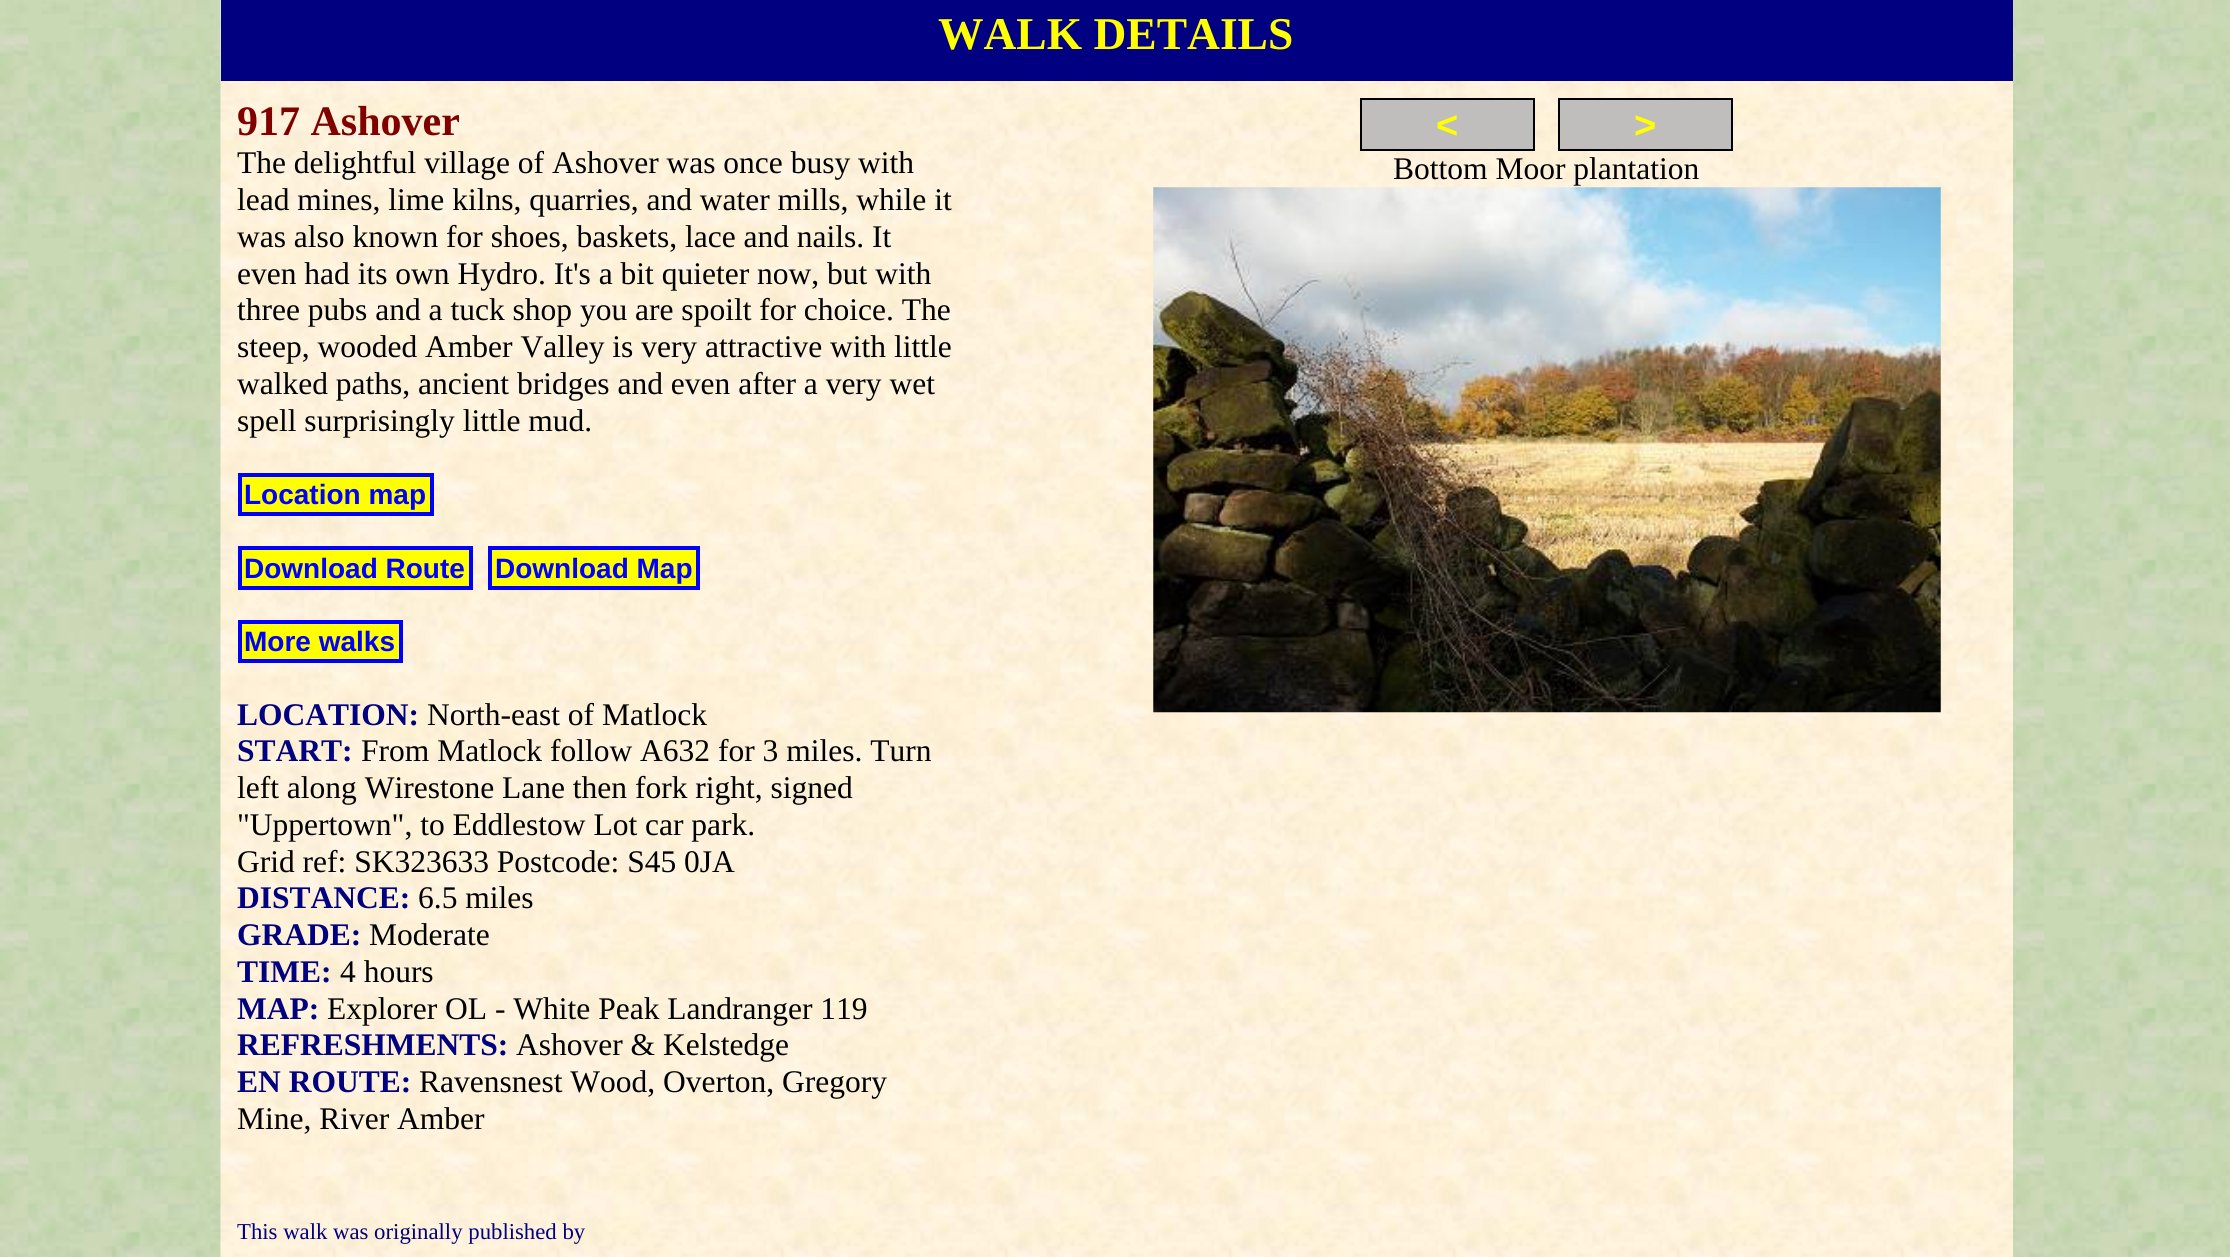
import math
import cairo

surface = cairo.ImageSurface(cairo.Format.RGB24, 2230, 1257)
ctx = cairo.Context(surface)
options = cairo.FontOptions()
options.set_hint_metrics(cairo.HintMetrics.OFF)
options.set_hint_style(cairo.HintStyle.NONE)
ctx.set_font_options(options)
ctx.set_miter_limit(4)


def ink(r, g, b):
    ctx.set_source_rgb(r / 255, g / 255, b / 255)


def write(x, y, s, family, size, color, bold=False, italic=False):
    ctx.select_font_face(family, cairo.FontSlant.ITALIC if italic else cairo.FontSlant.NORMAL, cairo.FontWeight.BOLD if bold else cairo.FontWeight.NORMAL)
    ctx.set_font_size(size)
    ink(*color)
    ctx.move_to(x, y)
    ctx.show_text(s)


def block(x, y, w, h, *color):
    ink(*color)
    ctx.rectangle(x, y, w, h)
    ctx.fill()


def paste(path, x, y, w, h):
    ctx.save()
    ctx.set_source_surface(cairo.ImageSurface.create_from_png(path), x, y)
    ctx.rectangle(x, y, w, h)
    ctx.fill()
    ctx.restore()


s1 = dict(family="Liberation Serif", size=45.5, color=(255, 255, 0), bold=True)
s2 = dict(family="Liberation Serif", size=42, color=(128, 0, 0), bold=True)
s3 = dict(family="Liberation Serif", size=31.5, color=(0, 0, 0))
s4 = dict(family="Liberation Sans", size=28, color=(0, 0, 255), bold=True)
s5 = dict(family="Liberation Serif", size=31.5, color=(0, 0, 128), bold=True)
s6 = dict(family="Liberation Serif", size=22.75, color=(0, 0, 128))
s7 = dict(family="Liberation Sans", size=38, color=(255, 255, 0), bold=True)

ink(255, 255, 255)
ctx.paint()
paste("pic1.png", 0, 0, 2230, 1257)
block(2012, 81, 1, 1176, 253, 241, 219)
paste("pic2.png", 220, 0, 1793, 1257)
block(221, 0, 1792, 81, 0, 0, 128)
write(938, 49, "WALK DETAILS", **s1)
write(237, 135, "917 Ashover", **s2)
write(237, 173, "The delightful village of Ashover was once busy with", **s3)
write(237, 210, "lead mines, lime kilns, quarries, and water mills, while it", **s3)
write(237, 247, "was also known for shoes, baskets, lace and nails. It", **s3)
write(237, 284, "even had its own Hydro. It's a bit quieter now, but with", **s3)
write(237, 320, "three pubs and a tuck shop you are spoilt for choice. The", **s3)
write(237, 357, "steep, wooded Amber Valley is very attractive with little", **s3)
write(237, 394, "walked paths, ancient bridges and even after a very wet", **s3)
write(237, 431, "spell surprisingly little mud.", **s3)
ink(255, 255, 0)
ctx.rectangle(240, 475, 192, 39)
ctx.fill_preserve()
ink(0, 0, 255)
ctx.set_line_width(4)
ctx.stroke()
write(244, 504, "Location map", **s4)
ink(255, 255, 0)
ctx.rectangle(240, 548, 231, 40)
ctx.fill_preserve()
ink(0, 0, 255)
ctx.stroke()
write(244, 578, "Download Route", **s4)
ink(255, 255, 0)
ctx.rectangle(490, 548, 208, 40)
ctx.fill_preserve()
ink(0, 0, 255)
ctx.stroke()
write(495, 578, "Download Map", **s4)
ink(255, 255, 0)
ctx.rectangle(240, 622, 161, 39)
ctx.fill_preserve()
ink(0, 0, 255)
ctx.stroke()
write(244, 651, "More walks", **s4)
write(237, 725, "LOCATION:", **s5)
write(427, 725, "North-east of Matlock", **s3)
write(237, 761, "START:", **s5)
write(361, 761, "From Matlock follow A632 for 3 miles. Turn", **s3)
write(237, 798, "left along Wirestone Lane then fork right, signed", **s3)
write(237, 835, "\"Uppertown\", to Eddlestow Lot car park.", **s3)
write(237, 872, "Grid ref: SK323633 Postcode: S45 0JA", **s3)
write(237, 908, "DISTANCE:", **s5)
write(418, 908, "6.5 miles", **s3)
write(237, 945, "GRADE:", **s5)
write(369, 945, "Moderate", **s3)
write(237, 982, "TIME:", **s5)
write(340, 982, "4 hours", **s3)
write(237, 1019, "MAP:", **s5)
write(327, 1019, "Explorer OL - White Peak Landranger 119", **s3)
write(237, 1055, "REFRESHMENTS:", **s5)
write(516, 1055, "Ashover & Kelstedge", **s3)
write(237, 1092, "EN ROUTE:", **s5)
write(419, 1092, "Ravensnest Wood, Overton, Gregory", **s3)
write(237, 1129, "Mine, River Amber", **s3)
write(237, 1239, "This walk was originally published by", **s6)
ink(192, 189, 189)
ctx.rectangle(1361, 99, 173, 51)
ctx.fill_preserve()
ink(0, 0, 0)
ctx.set_line_width(2)
ctx.stroke()
write(1436, 138, "<", **s7)
ink(192, 189, 189)
ctx.rectangle(1559, 99, 173, 51)
ctx.fill_preserve()
ink(0, 0, 0)
ctx.stroke()
write(1634, 138, ">", **s7)
write(1393, 179, "Bottom Moor plantation", **s3)
paste("pic3.png", 1153, 187, 788, 526)
surface.write_to_png("screenshot.png")
